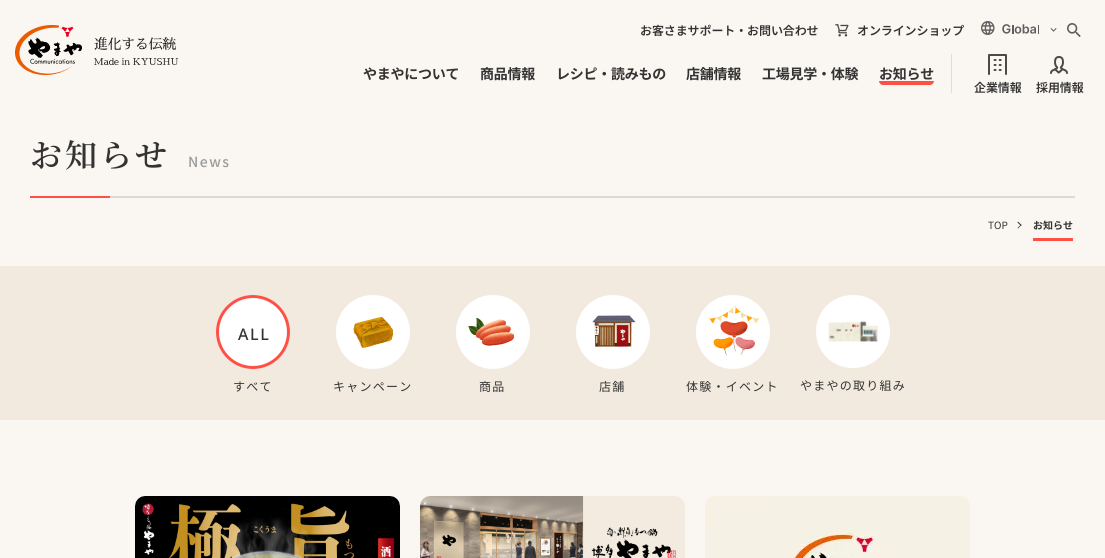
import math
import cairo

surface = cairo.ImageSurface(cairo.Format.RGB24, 1105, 558)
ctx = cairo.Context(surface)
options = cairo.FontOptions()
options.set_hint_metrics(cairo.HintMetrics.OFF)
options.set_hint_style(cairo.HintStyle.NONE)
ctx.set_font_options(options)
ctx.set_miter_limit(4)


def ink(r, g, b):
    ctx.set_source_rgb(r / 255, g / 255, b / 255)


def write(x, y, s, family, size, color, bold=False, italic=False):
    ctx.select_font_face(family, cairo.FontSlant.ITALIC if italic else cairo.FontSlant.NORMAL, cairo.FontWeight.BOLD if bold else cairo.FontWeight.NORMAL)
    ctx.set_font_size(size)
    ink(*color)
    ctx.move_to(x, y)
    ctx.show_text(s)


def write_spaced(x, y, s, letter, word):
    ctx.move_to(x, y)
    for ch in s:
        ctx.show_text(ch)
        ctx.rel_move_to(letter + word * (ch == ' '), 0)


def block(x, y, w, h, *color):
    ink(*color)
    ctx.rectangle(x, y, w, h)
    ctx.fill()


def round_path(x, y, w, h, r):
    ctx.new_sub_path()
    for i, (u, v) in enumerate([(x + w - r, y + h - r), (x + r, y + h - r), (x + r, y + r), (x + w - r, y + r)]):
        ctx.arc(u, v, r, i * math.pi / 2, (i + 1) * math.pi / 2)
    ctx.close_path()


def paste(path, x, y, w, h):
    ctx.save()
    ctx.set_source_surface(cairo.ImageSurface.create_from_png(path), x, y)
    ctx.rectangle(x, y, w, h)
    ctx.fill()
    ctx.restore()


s1 = dict(family="Noto Sans JP", size=10, color=(51, 51, 51))
s2 = dict(family="Noto Sans JP", size=10, color=(51, 51, 51), bold=True)

ink(250, 247, 242)
ctx.paint()
paste("pic1.png", 15, 25, 164, 50)
ctx.select_font_face("Noto Sans JP SemiBold")
ctx.set_font_size(12)
ink(51, 51, 51)
write_spaced(640, 35, "お客さまサポート・お問い合わせ", -0.1, 0)
paste("pic2.png", 835, 24, 14, 13)
write_spaced(857, 35, "オンラインショップ", -0.1, 0)
paste("pic3.png", 981, 21, 14, 14)
paste("pic4.png", 1002, 24, 37, 10)
paste("pic5.png", 1050, 28, 7, 4)
paste("pic6.png", 1067, 23, 14, 14)
ctx.select_font_face("Noto Sans JP", cairo.FontSlant.NORMAL, cairo.FontWeight.BOLD)
ctx.set_font_size(14)
write_spaced(363, 79, "やまやについて", -0.25, 0)
write_spaced(480, 79, "商品情報", -0.25, 0)
write_spaced(556, 79, "レシピ・読みもの", -0.25, 0)
write_spaced(686, 79, "店舗情報", -0.25, 0)
write_spaced(762, 79, "工場見学・体験", -0.25, 0)
write_spaced(879, 79, "お知らせ", -0.25, 0)
ink(255, 80, 69)
ctx.new_path()
ctx.move_to(879, 81)
ctx.line_to(934, 81)
ctx.curve_to(934, 83, 932, 85, 930, 85)
ctx.line_to(883, 85)
ctx.curve_to(881, 85, 879, 83, 879, 81)
ctx.close_path()
ctx.fill()
block(951, 54, 1, 39, 221, 221, 221)
paste("pic7.png", 988, 54, 19, 21)
ctx.select_font_face("Noto Sans JP SemiBold")
ctx.set_font_size(12)
ink(51, 51, 51)
write_spaced(974, 92, "企業情報", -0.1, 0)
paste("pic8.png", 1050, 56, 18, 18)
write_spaced(1036, 92, "採用情報", -0.1, 0)
block(110, 196, 965, 2, 217, 217, 217)
ctx.select_font_face("Noto Serif JP SemiBold")
ctx.set_font_size(32)
ink(51, 51, 51)
write_spaced(30, 167, "お知らせ", 3, 0)
ctx.select_font_face("Noto Sans JP Medium")
ctx.set_font_size(14)
ink(154, 156, 156)
write_spaced(188, 167, "News", 1.5, 0)
block(30, 196, 80, 2, 255, 80, 69)
write(988, 229, "TOP", **s1)
ctx.new_path()
ctx.move_to(1018, 221.5)
ctx.line_to(1021.5, 225)
ctx.line_to(1021, 226)
ctx.line_to(1017.5, 222.5)
ctx.close_path()
ctx.fill()
ctx.new_path()
ctx.move_to(1021, 224.5)
ctx.line_to(1021.5, 225)
ctx.line_to(1018, 228.5)
ctx.line_to(1017.5, 228)
ctx.close_path()
ctx.fill()
write(1033, 229, "お知らせ", **s2)
block(1033, 238, 40, 3, 255, 80, 69)
block(0, 266, 1105, 154, 243, 234, 223)
ink(255, 255, 255)
ctx.new_path()
ctx.arc(253, 332, 37, 0, 2 * math.pi)
ctx.fill()
paste("pic9.png", 238, 328, 31, 12)
ctx.arc(253, 332, 35.5, 0, 2 * math.pi)
ink(255, 80, 69)
ctx.set_line_width(3)
ctx.stroke()
ctx.select_font_face("Noto Sans JP")
ctx.set_font_size(12)
ink(51, 51, 51)
write_spaced(233, 391, "すべて", 1.25, 0)
ink(255, 255, 255)
ctx.new_path()
ctx.arc(373, 332, 37, 0, 2 * math.pi)
ctx.fill()
paste("pic10.png", 353, 316, 41, 32)
ink(51, 51, 51)
write_spaced(333, 391, "キャンペーン", 1.25, 0)
ink(255, 255, 255)
ctx.new_path()
ctx.arc(493, 332, 37, 0, 2 * math.pi)
ctx.fill()
paste("pic11.png", 468, 317, 46, 29)
ink(51, 51, 51)
write_spaced(479, 391, "商品", 1.25, 0)
ink(255, 255, 255)
ctx.new_path()
ctx.arc(613, 332, 37, 0, 2 * math.pi)
ctx.fill()
paste("pic12.png", 592, 315, 44, 32)
ink(51, 51, 51)
write_spaced(599, 391, "店舗", 1.25, 0)
ink(255, 255, 255)
ctx.new_path()
ctx.arc(733, 332, 37, 0, 2 * math.pi)
ctx.fill()
paste("pic13.png", 708, 306, 53, 50)
ink(51, 51, 51)
write_spaced(686, 391, "体験・イベント", 1.25, 0)
ink(255, 255, 255)
round_path(816, 295, 74, 73, 36.5)
ctx.fill()
paste("pic14.png", 828, 321, 51, 21)
ink(51, 51, 51)
write_spaced(800, 390, "やまやの取り組み", 1.25, 0)
paste("pic15.png", 135, 496, 265, 62)
paste("pic16.png", 420, 496, 265, 62)
paste("pic17.png", 705, 496, 265, 62)
surface.write_to_png("screenshot.png")
